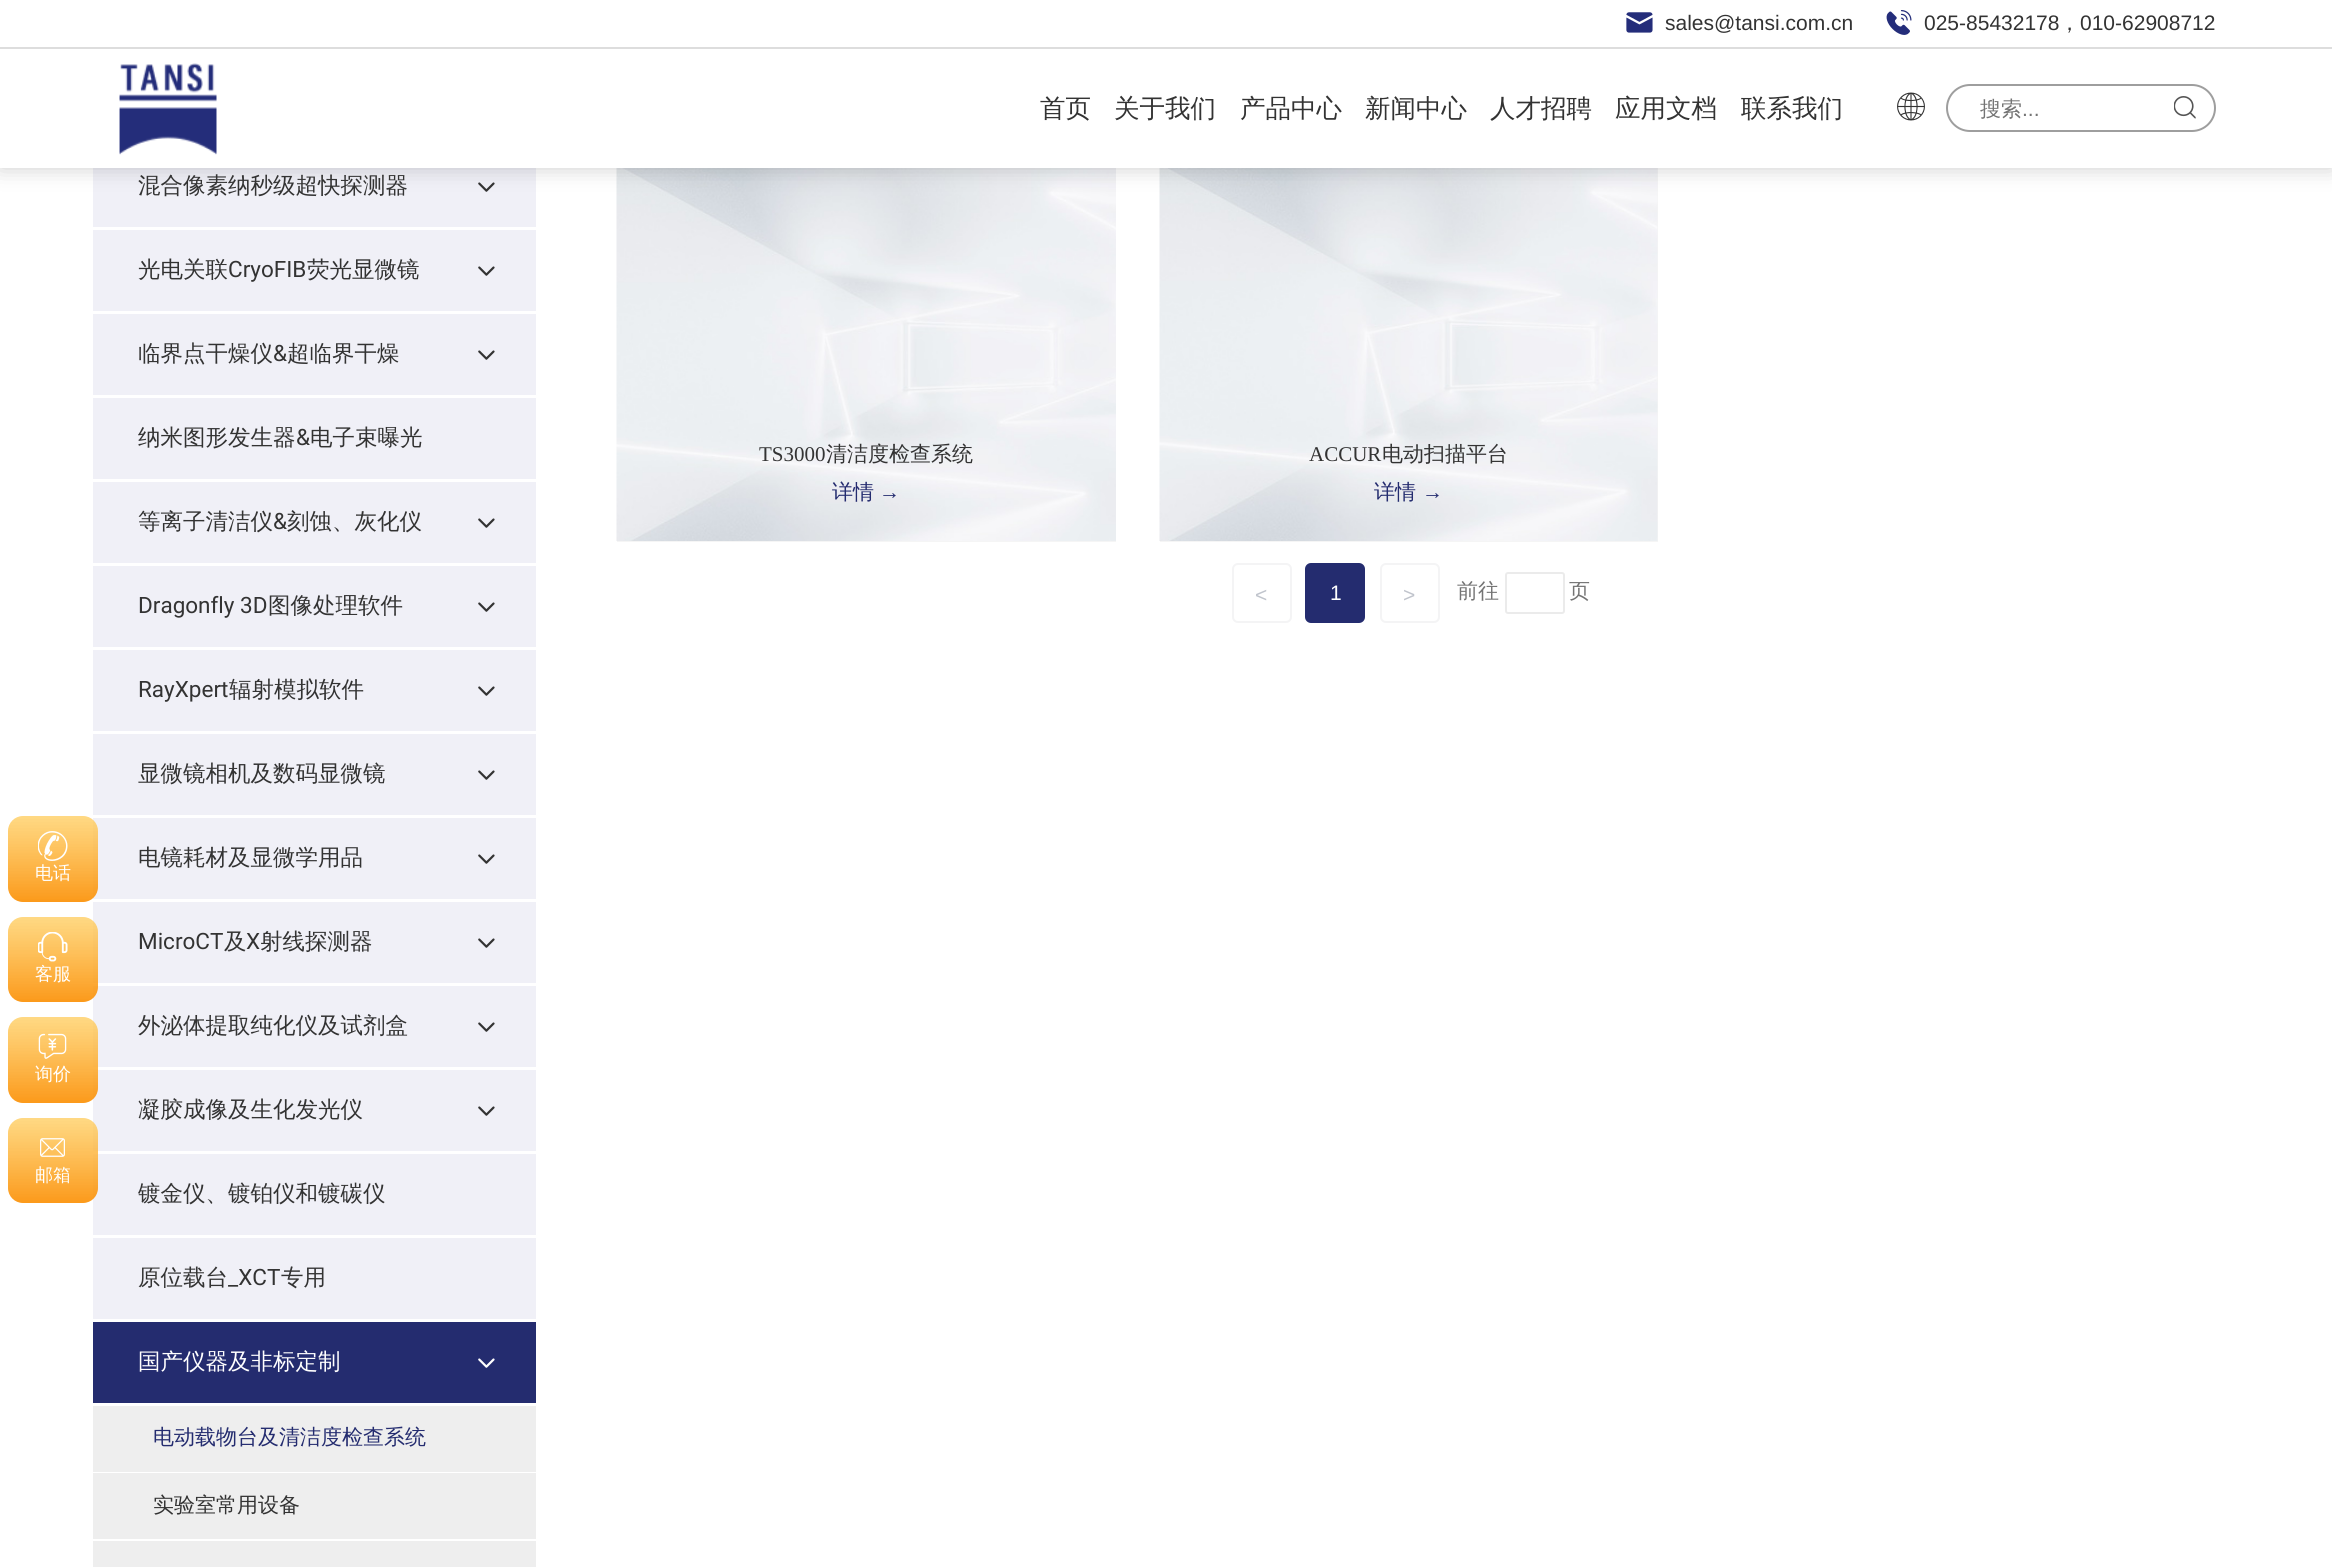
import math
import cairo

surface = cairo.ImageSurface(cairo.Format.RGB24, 2332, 1567)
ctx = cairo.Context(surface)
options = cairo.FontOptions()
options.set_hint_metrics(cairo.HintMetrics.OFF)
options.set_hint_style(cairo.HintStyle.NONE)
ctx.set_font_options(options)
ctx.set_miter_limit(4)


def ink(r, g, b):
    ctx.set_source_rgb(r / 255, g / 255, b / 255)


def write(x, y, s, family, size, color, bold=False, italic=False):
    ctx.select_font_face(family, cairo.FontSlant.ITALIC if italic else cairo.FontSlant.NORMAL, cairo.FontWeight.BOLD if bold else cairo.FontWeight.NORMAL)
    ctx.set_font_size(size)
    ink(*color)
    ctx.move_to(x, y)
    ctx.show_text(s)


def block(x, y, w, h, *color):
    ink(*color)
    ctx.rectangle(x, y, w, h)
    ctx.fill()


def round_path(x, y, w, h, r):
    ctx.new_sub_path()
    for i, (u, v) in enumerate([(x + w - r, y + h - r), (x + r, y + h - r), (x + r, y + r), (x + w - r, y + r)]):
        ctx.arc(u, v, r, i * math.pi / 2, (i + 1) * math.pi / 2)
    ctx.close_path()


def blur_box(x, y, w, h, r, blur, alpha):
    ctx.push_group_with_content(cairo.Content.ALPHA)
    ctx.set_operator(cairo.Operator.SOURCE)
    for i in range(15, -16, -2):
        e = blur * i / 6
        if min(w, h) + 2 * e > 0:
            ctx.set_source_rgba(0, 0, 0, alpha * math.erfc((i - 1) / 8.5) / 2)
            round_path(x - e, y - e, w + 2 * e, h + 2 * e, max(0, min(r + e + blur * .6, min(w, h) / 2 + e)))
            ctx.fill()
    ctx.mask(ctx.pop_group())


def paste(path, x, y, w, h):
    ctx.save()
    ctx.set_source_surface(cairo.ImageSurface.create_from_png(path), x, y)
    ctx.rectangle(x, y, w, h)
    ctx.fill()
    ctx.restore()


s1 = dict(family="Liberation Sans", size=21, color=(51, 51, 51))
s2 = dict(family="WenQuanYi Zen Hei Medium", size=21, color=(51, 51, 51))
s3 = dict(family="WenQuanYi Zen Hei Medium", size=25.5, color=(51, 51, 51))
s4 = dict(family="WenQuanYi Zen Hei Medium", size=21, color=(116, 116, 116))
s5 = dict(family="Liberation Sans", size=21, color=(116, 116, 116))
s6 = dict(family="WenQuanYi Zen Hei Medium", size=18, color=(255, 255, 255))
s7 = dict(family="WenQuanYi Zen Hei Medium", size=22.5, color=(51, 51, 51))
s8 = dict(family="Roboto", size=22.5, color=(51, 51, 51))
s9 = dict(family="WenQuanYi Zen Hei Medium", size=22.5, color=(255, 255, 255))
s10 = dict(family="WenQuanYi Zen Hei Medium", size=21, color=(36, 44, 111))
s11 = dict(family="Liberation Serif", size=21, color=(51, 51, 51))
s12 = dict(family="Liberation Serif", size=21, color=(36, 44, 111))
s13 = dict(family="Liberation Sans", size=21, color=(192, 196, 204))
s14 = dict(family="Liberation Sans", size=21, color=(255, 255, 255))

ink(255, 255, 255)
ctx.paint()
block(93, 168, 443, 59, 240, 240, 247)
paste("pic10.png", 478, 182, 17, 10)
paste("pic12.png", 616, 168, 500, 373)
block(1160, 168, 498, 374, 245, 245, 245)
paste("pic13.png", 1159, 168, 499, 373)
ink(0, 0, 0)
blur_box(0, 0, 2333, 168, 0, 11, 0.2)
block(0, 0, 2332, 168, 255, 255, 255)
block(0, 47, 2332, 2, 221, 221, 221)
paste("pic1.png", 1626, 12, 27, 21)
write(1665, 30, "sales@tansi.com.cn", **s1)
paste("pic2.png", 1886, 10, 26, 25)
write(1924, 30, "025-85432178", **s1)
write(2059, 30, "，", **s2)
write(2080, 30, "010-62908712", **s1)
paste("pic3.png", 119, 63, 98, 92)
write(1040, 117, "首页", **s3)
write(1114, 117, "关于我们", **s3)
write(1240, 117, "产品中心", **s3)
write(1365, 117, "新闻中心", **s3)
write(1490, 117, "人才招聘", **s3)
write(1615, 117, "应用文档", **s3)
write(1741, 117, "联系我们", **s3)
paste("pic4.png", 1897, 92, 28, 29)
round_path(1947, 85, 268, 46, 23)
ink(158, 158, 158)
ctx.stroke()
write(1980, 116, "搜索", **s4)
write(2022, 116, "...", **s5)
paste("pic5.png", 2174, 96, 22, 23)
block(93, 818, 443, 81, 240, 240, 247)
gradient = cairo.LinearGradient(53, 902, 53, 816)
gradient.add_color_stop_rgba(0, 0.984, 0.557, 0.004, 0.9)
gradient.add_color_stop_rgba(1, 1, 0.812, 0.388, 0.79)
ctx.set_source(gradient)
round_path(8, 816, 90, 86, 15)
ctx.fill()
paste("pic6.png", 38, 831, 30, 30)
write(35, 879, "电话", **s6)
block(93, 902, 443, 81, 240, 240, 247)
block(93, 986, 443, 81, 240, 240, 247)
gradient = cairo.LinearGradient(53, 1002, 53, 917)
gradient.add_color_stop_rgba(0, 0.984, 0.557, 0.004, 0.9)
gradient.add_color_stop_rgba(1, 1, 0.812, 0.388, 0.79)
ctx.set_source(gradient)
round_path(8, 917, 90, 85, 15)
ctx.fill()
paste("pic7.png", 38, 932, 30, 30)
write(35, 980, "客服", **s6)
block(93, 1070, 443, 81, 240, 240, 247)
gradient = cairo.LinearGradient(53, 1103, 53, 1017)
gradient.add_color_stop_rgba(0, 0.984, 0.557, 0.004, 0.9)
gradient.add_color_stop_rgba(1, 1, 0.812, 0.388, 0.79)
ctx.set_source(gradient)
round_path(8, 1017, 90, 86, 15)
ctx.fill()
paste("pic8.png", 38, 1033, 29, 26)
write(35, 1080, "询价", **s6)
block(93, 1154, 443, 81, 240, 240, 247)
gradient = cairo.LinearGradient(53, 1203, 53, 1118)
gradient.add_color_stop_rgba(0, 0.984, 0.557, 0.004, 0.9)
gradient.add_color_stop_rgba(1, 1, 0.812, 0.388, 0.79)
ctx.set_source(gradient)
round_path(8, 1118, 90, 85, 15)
ctx.fill()
paste("pic9.png", 40, 1138, 25, 19)
write(35, 1181, "邮箱", **s6)
write(138, 193, "混合像素纳秒级超快探测器", **s7)
block(93, 230, 443, 81, 240, 240, 247)
write(138, 277, "光电关联", **s7)
write(228, 277, "CryoFIB", **s8)
write(307, 277, "荧光显微镜", **s7)
paste("pic10.png", 478, 266, 17, 10)
block(93, 314, 443, 81, 240, 240, 247)
write(138, 361, "临界点干燥仪", **s7)
write(273, 361, "&", **s8)
write(287, 361, "超临界干燥", **s7)
paste("pic10.png", 478, 350, 17, 10)
block(93, 398, 443, 81, 240, 240, 247)
write(138, 445, "纳米图形发生器", **s7)
write(296, 445, "&", **s8)
write(310, 445, "电子束曝光", **s7)
block(93, 482, 443, 81, 240, 240, 247)
write(138, 529, "等离子清洁仪", **s7)
write(273, 529, "&", **s8)
write(287, 529, "刻蚀、灰化仪", **s7)
paste("pic10.png", 478, 518, 17, 10)
block(93, 566, 443, 81, 240, 240, 247)
write(138, 613, "Dragonfly 3D", **s8)
write(268, 613, "图像处理软件", **s7)
paste("pic10.png", 478, 602, 17, 10)
block(93, 650, 443, 81, 240, 240, 247)
write(138, 697, "RayXpert", **s8)
write(229, 697, "辐射模拟软件", **s7)
paste("pic10.png", 478, 686, 17, 10)
block(93, 734, 443, 81, 240, 240, 247)
write(138, 781, "显微镜相机及数码显微镜", **s7)
paste("pic10.png", 478, 770, 17, 10)
write(138, 865, "电镜耗材及显微学用品", **s7)
paste("pic10.png", 478, 854, 17, 10)
write(138, 949, "MicroCT", **s8)
write(224, 949, "及", **s7)
write(246, 949, "X", **s8)
write(260, 949, "射线探测器", **s7)
paste("pic10.png", 478, 938, 17, 10)
write(138, 1033, "外泌体提取纯化仪及试剂盒", **s7)
paste("pic10.png", 478, 1022, 17, 10)
write(138, 1117, "凝胶成像及生化发光仪", **s7)
paste("pic10.png", 478, 1106, 17, 10)
write(138, 1201, "镀金仪、镀铂仪和镀碳仪", **s7)
block(93, 1238, 443, 81, 240, 240, 247)
write(138, 1285, "原位载台", **s7)
write(228, 1285, "_XCT", **s8)
write(281, 1285, "专用", **s7)
block(93, 1322, 443, 81, 36, 44, 111)
write(138, 1369, "国产仪器及非标定制", **s9)
paste("pic11.png", 478, 1358, 17, 10)
block(93, 1406, 443, 66, 238, 238, 238)
write(153, 1444, "电动载物台及清洁度检查系统", **s10)
block(93, 1473, 443, 66, 238, 238, 238)
write(153, 1512, "实验室常用设备", **s2)
block(93, 1541, 443, 26, 238, 238, 238)
block(617, 541, 499, 1, 245, 245, 245)
write(759, 461, "TS3000", **s11)
write(826, 461, "清洁度检查系统", **s2)
write(832, 499, "详情", **s10)
write(879, 499, "→", **s12)
write(1309, 461, "ACCUR", **s11)
write(1382, 461, "电动扫描平台", **s2)
write(1374, 499, "详情", **s10)
write(1422, 499, "→", **s12)
round_path(1233, 564, 58, 58, 5)
ink(244, 244, 245)
ctx.stroke()
write(1255, 602, "<", **s13)
ink(36, 44, 111)
round_path(1305, 563, 60, 60, 6)
ctx.fill()
write(1330, 600, "1", **s14)
round_path(1381, 564, 58, 58, 5)
ink(244, 244, 245)
ctx.stroke()
write(1403, 602, ">", **s13)
write(1457, 598, "前往", **s4)
round_path(1506, 573, 58, 40, 2)
ink(235, 235, 235)
ctx.stroke()
write(1569, 598, "页", **s4)
surface.write_to_png("screenshot.png")
